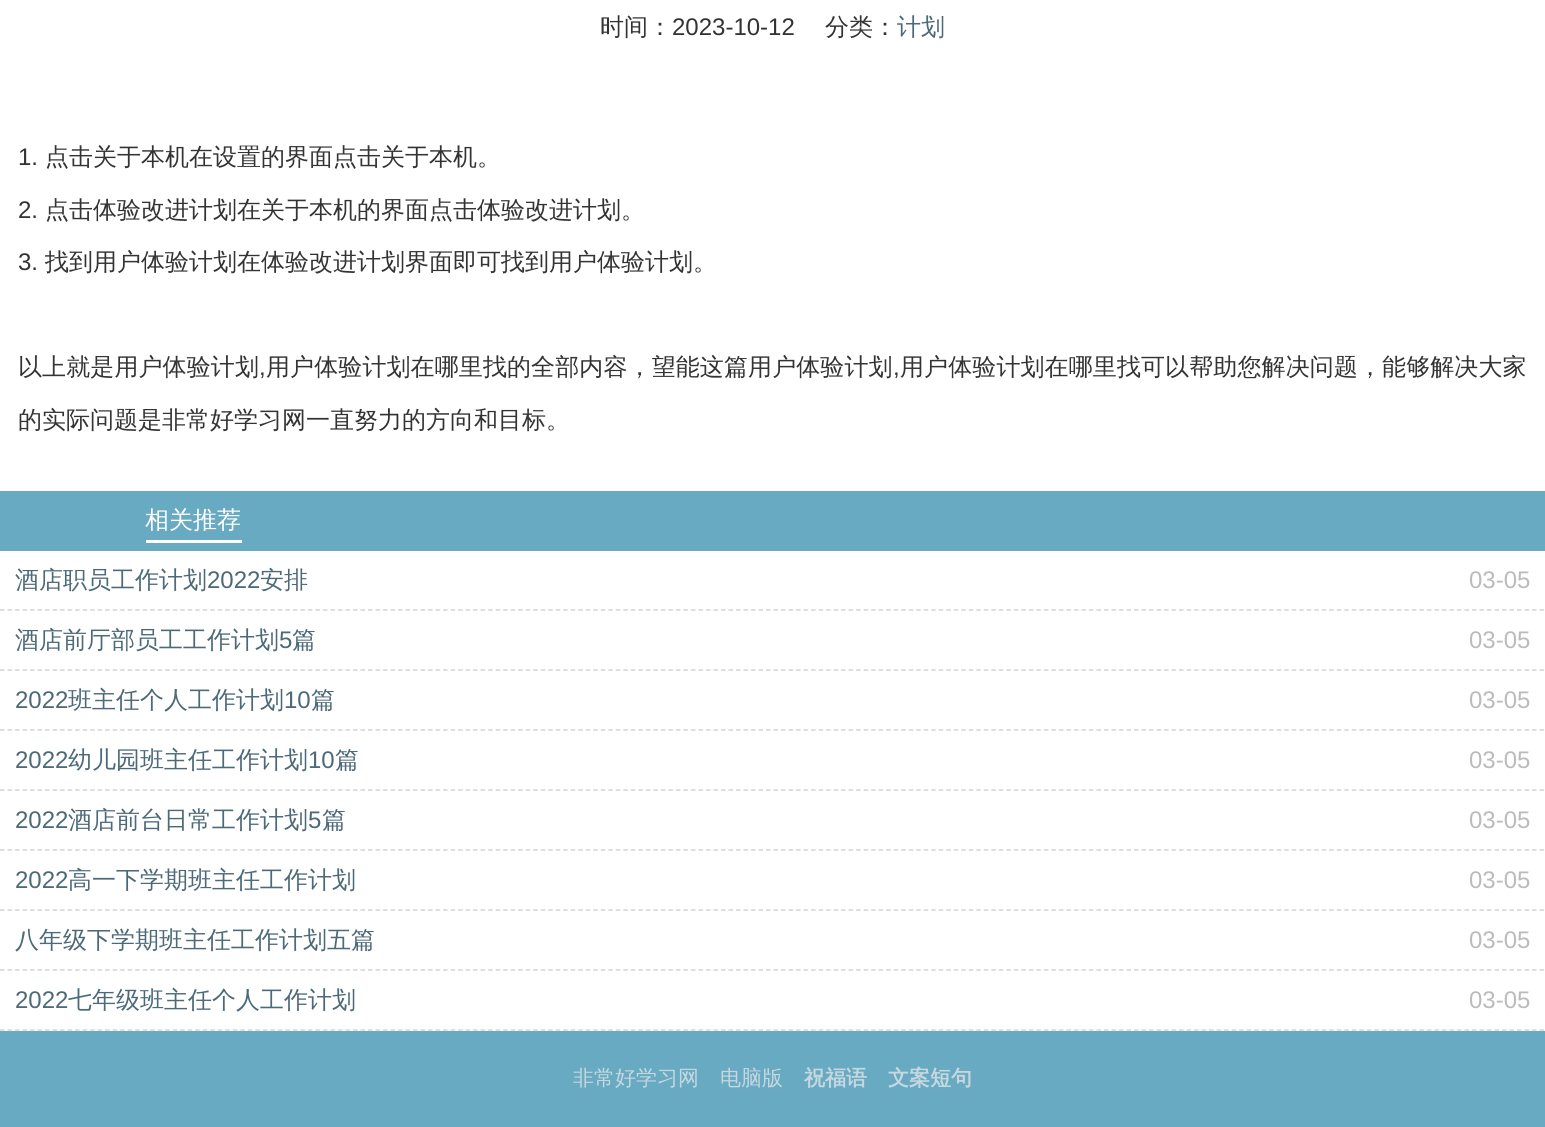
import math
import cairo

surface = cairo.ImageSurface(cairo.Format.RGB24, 1545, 1127)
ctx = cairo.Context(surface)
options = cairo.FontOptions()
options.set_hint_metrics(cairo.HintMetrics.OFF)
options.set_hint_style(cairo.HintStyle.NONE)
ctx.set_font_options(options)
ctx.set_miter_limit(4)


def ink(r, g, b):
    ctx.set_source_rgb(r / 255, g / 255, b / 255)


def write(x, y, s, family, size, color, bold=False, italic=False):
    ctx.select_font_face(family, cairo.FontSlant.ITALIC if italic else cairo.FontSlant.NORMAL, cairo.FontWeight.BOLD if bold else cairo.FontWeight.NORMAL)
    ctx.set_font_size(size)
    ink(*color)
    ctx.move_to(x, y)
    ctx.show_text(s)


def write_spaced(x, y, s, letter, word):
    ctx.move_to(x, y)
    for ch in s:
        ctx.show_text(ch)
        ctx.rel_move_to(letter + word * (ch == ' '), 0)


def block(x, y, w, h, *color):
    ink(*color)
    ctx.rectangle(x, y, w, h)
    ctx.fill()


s1 = dict(family="WenQuanYi Zen Hei Medium", size=24, color=(51, 51, 51))
s2 = dict(family="Liberation Sans", size=24, color=(51, 51, 51))
s3 = dict(family="WenQuanYi Zen Hei Medium", size=24, color=(76, 105, 120))
s4 = dict(family="WenQuanYi Zen Hei Medium", size=24, color=(255, 255, 255))
s5 = dict(family="Liberation Sans", size=24, color=(76, 105, 120))
s6 = dict(family="Liberation Sans", size=24, color=(187, 187, 187))
s7 = dict(family="WenQuanYi Zen Hei Medium", size=21, color=(197, 215, 223))
s8 = dict(family="WenQuanYi Zen Hei", size=21, color=(197, 215, 223), bold=True)

ink(255, 255, 255)
ctx.paint()
write(600, 35, "时间：", **s1)
write(672, 35, "2023-10-12", **s2)
write(825, 35, "分类：", **s1)
write(897, 35, "计划", **s3)
write(18, 165, "1.", **s2)
write(45, 165, "点击关于本机在设置的界面点击关于本机。", **s1)
write(18, 218, "2.", **s2)
write(45, 218, "点击体验改进计划在关于本机的界面点击体验改进计划。", **s1)
write(18, 270, "3.", **s2)
write(45, 270, "找到用户体验计划在体验改进计划界面即可找到用户体验计划。", **s1)
write_spaced(18, 375, "以上就是用户体验计划", 0.1, 0)
ctx.select_font_face("Liberation Sans")
write_spaced(259, 375, ",", 0.1, 0)
ctx.select_font_face("WenQuanYi Zen Hei Medium")
write_spaced(266, 375, "用户体验计划在哪里找的全部内容，望能这篇用户体验计划", 0.1, 0)
ctx.select_font_face("Liberation Sans")
write_spaced(893, 375, ",", 0.1, 0)
ctx.select_font_face("WenQuanYi Zen Hei Medium")
write_spaced(900, 375, "用户体验计划在哪里找可以帮助您解决问题，能够解决大家", 0.1, 0)
write(18, 428, "的实际问题是非常好学习网一直努力的方向和目标。", **s1)
block(0, 491, 1545, 60, 104, 170, 194)
write(145, 528, "相关推荐", **s4)
block(146, 540, 96, 3, 255, 255, 255)
ctx.new_path()
ctx.move_to(0, 610)
ctx.line_to(1545, 610)
ink(212, 212, 212)
ctx.set_line_width(1.5)
ctx.set_dash([4.5, 3.01])
ctx.stroke()
write(15, 588, "酒店职员工作计划", **s3)
write(207, 588, "2022", **s5)
write(260, 588, "安排", **s3)
write(1469, 588, "03-05", **s6)
ctx.new_path()
ctx.move_to(0, 670)
ctx.line_to(1545, 670)
ink(212, 212, 212)
ctx.stroke()
write(15, 648, "酒店前厅部员工工作计划", **s3)
write(279, 648, "5", **s5)
write(292, 648, "篇", **s3)
write(1469, 648, "03-05", **s6)
ctx.new_path()
ctx.move_to(0, 730)
ctx.line_to(1545, 730)
ink(212, 212, 212)
ctx.stroke()
write(15, 708, "2022", **s5)
write(68, 708, "班主任个人工作计划", **s3)
write(284, 708, "10", **s5)
write(311, 708, "篇", **s3)
write(1469, 708, "03-05", **s6)
ctx.new_path()
ctx.move_to(0, 790)
ctx.line_to(1545, 790)
ink(212, 212, 212)
ctx.stroke()
write(15, 768, "2022", **s5)
write(68, 768, "幼儿园班主任工作计划", **s3)
write(308, 768, "10", **s5)
write(335, 768, "篇", **s3)
write(1469, 768, "03-05", **s6)
ctx.new_path()
ctx.move_to(0, 850)
ctx.line_to(1545, 850)
ink(212, 212, 212)
ctx.stroke()
write(15, 828, "2022", **s5)
write(68, 828, "酒店前台日常工作计划", **s3)
write(308, 828, "5", **s5)
write(322, 828, "篇", **s3)
write(1469, 828, "03-05", **s6)
ctx.new_path()
ctx.move_to(0, 910)
ctx.line_to(1545, 910)
ink(212, 212, 212)
ctx.stroke()
write(15, 888, "2022", **s5)
write(68, 888, "高一下学期班主任工作计划", **s3)
write(1469, 888, "03-05", **s6)
ctx.new_path()
ctx.move_to(0, 970)
ctx.line_to(1545, 970)
ink(212, 212, 212)
ctx.stroke()
write(15, 948, "八年级下学期班主任工作计划五篇", **s3)
write(1469, 948, "03-05", **s6)
ctx.new_path()
ctx.move_to(0, 1030)
ctx.line_to(1545, 1030)
ink(212, 212, 212)
ctx.stroke()
write(15, 1008, "2022", **s5)
write(68, 1008, "七年级班主任个人工作计划", **s3)
write(1469, 1008, "03-05", **s6)
block(0, 1031, 1545, 96, 104, 170, 194)
write(573, 1085, "非常好学习网", **s7)
write(720, 1085, "电脑版", **s7)
write(804, 1085, "祝福语", **s8)
write(888, 1085, "文案短句", **s8)
surface.write_to_png("screenshot.png")
